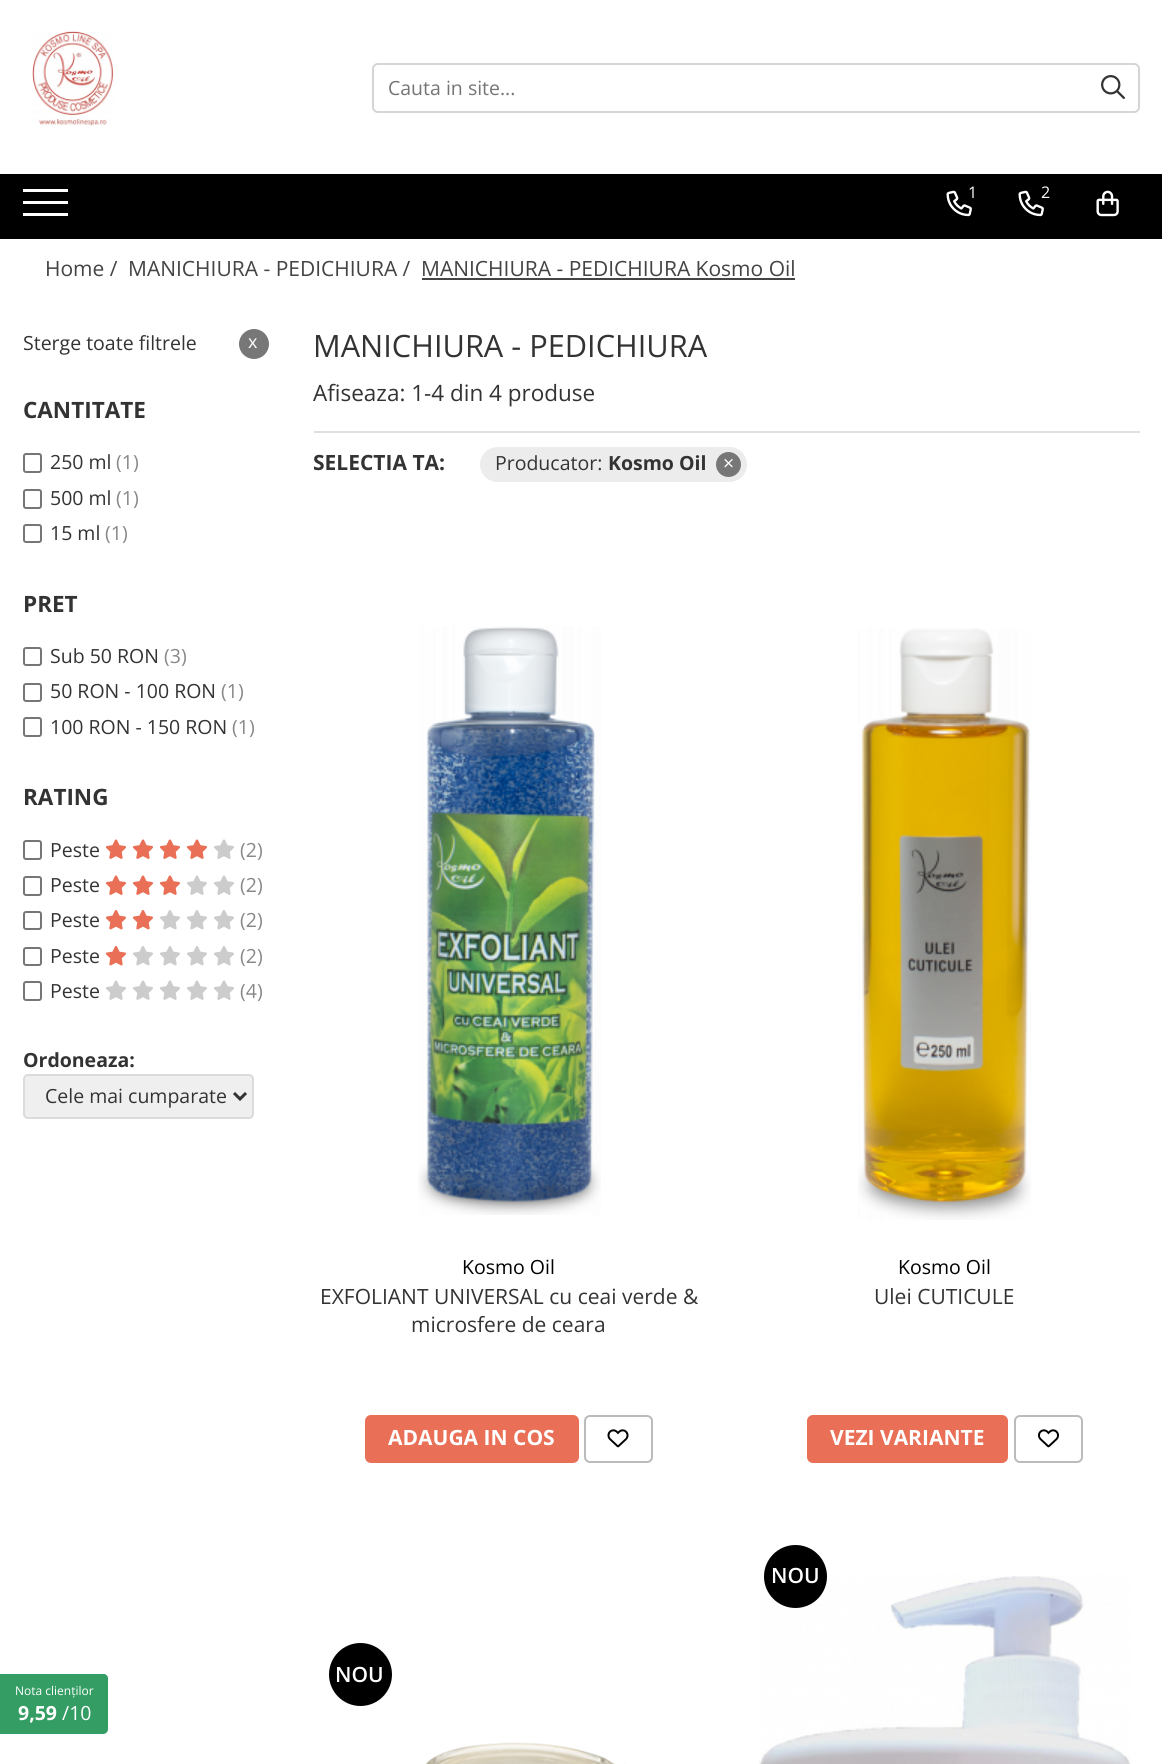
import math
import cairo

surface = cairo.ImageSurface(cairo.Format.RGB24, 1162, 1764)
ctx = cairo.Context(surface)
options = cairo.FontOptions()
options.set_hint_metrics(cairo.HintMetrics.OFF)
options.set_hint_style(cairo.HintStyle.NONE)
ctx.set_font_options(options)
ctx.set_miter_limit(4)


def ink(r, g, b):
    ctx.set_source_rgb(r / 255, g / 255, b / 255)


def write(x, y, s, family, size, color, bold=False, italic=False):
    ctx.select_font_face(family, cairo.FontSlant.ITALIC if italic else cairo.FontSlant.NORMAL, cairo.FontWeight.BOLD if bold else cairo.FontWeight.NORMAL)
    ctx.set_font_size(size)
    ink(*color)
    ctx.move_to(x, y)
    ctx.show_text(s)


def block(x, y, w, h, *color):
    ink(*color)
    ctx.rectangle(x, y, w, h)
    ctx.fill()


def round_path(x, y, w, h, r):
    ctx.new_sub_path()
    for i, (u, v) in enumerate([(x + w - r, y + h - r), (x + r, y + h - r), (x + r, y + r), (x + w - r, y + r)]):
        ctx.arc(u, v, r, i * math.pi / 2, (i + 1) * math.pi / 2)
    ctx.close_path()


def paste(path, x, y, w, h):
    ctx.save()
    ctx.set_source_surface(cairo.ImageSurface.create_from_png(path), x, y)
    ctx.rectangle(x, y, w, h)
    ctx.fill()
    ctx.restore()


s1 = dict(family="Open Sans", size=19.5, color=(117, 117, 117))
s2 = dict(family="Open Sans", size=16, color=(255, 255, 255))
s3 = dict(family="Open Sans", size=21, color=(68, 68, 68))
s4 = dict(family="Open Sans", size=19.5, color=(51, 51, 51))
s5 = dict(family="Open Sans", size=18, color=(255, 255, 255))
s6 = dict(family="Open Sans", size=22.5, color=(51, 51, 51), bold=True)
s7 = dict(family="Open Sans", size=19.5, color=(136, 136, 136))
s8 = dict(family="Open Sans", size=19.5, color=(51, 51, 51), bold=True)
s9 = dict(family="Open Sans", size=30.75, color=(51, 51, 51))
s10 = dict(family="Open Sans", size=22.5, color=(51, 51, 51))
s11 = dict(family="Open Sans", size=21, color=(51, 51, 51), bold=True)
s12 = dict(family="Open Sans", size=19.5, color=(255, 255, 255))
s13 = dict(family="Open Sans", size=19.5, color=(0, 0, 0))
s14 = dict(family="Open Sans", size=21, color=(51, 51, 51))
s15 = dict(family="Open Sans", size=21, color=(255, 255, 255), bold=True)
s16 = dict(family="Open Sans SemiBold", size=21, color=(255, 255, 255))
s17 = dict(family="Open Sans", size=12, color=(255, 255, 255))
s18 = dict(family="Open Sans", size=19.5, color=(255, 255, 255), bold=True)

ink(255, 255, 255)
ctx.paint()
paste("pic1.png", 32, 31, 82, 95)
round_path(373, 64, 766, 48, 5)
ink(213, 213, 213)
ctx.stroke()
write(388, 95, "Cauta in site...", **s1)
paste("pic2.png", 1101, 75, 24, 24)
block(0, 174, 1162, 65, 0, 0, 0)
block(23, 201, 45, 3, 255, 255, 255)
block(23, 189, 45, 3, 255, 255, 255)
block(23, 213, 45, 3, 255, 255, 255)
paste("pic3.png", 946, 190, 26, 27)
write(968, 198, "1", **s2)
paste("pic3.png", 1018, 190, 26, 27)
write(1041, 198, "2", **s2)
paste("pic4.png", 1096, 190, 23, 27)
write(45, 276, "Home /", **s3)
write(128, 276, "MANICHIURA - PEDICHIURA /", **s3)
write(421, 276, "MANICHIURA - PEDICHIURA Kosmo Oil", **s3)
block(422, 278, 373, 2, 68, 68, 68)
write(23, 350, "Sterge toate filtrele", **s4)
ink(119, 119, 119)
ctx.new_path()
ctx.arc(254, 344, 15, 0, 2 * math.pi)
ctx.fill()
write(248, 348, "x", **s5)
write(23, 418, "CANTITATE", **s6)
round_path(24, 454, 17, 18, 2)
ink(118, 118, 118)
ctx.stroke()
write(50, 469, "250 ml", **s4)
write(116, 469, "(1)", **s7)
round_path(24, 490, 17, 18, 2)
ink(118, 118, 118)
ctx.stroke()
write(50, 505, "500 ml", **s4)
write(116, 505, "(1)", **s7)
round_path(24, 525, 17, 17, 2)
ink(118, 118, 118)
ctx.stroke()
write(50, 540, "15 ml", **s4)
write(105, 540, "(1)", **s7)
write(23, 612, "PRET", **s6)
round_path(24, 648, 17, 17, 2)
ink(118, 118, 118)
ctx.stroke()
write(50, 663, "Sub 50 RON", **s4)
write(164, 663, "(3)", **s7)
round_path(24, 684, 17, 17, 2)
ink(118, 118, 118)
ctx.stroke()
write(50, 698, "50 RON - 100 RON", **s4)
write(221, 698, "(1)", **s7)
round_path(24, 718, 17, 18, 2)
ink(118, 118, 118)
ctx.stroke()
write(50, 734, "100 RON - 150 RON", **s4)
write(232, 734, "(1)", **s7)
write(23, 805, "RATING", **s6)
round_path(24, 841, 17, 18, 2)
ink(118, 118, 118)
ctx.stroke()
write(50, 857, "Peste", **s4)
paste("pic5.png", 105, 839, 21, 20)
paste("pic5.png", 132, 839, 21, 20)
paste("pic5.png", 159, 839, 21, 20)
paste("pic5.png", 186, 839, 21, 20)
paste("pic6.png", 214, 839, 20, 20)
write(240, 857, "(2)", **s7)
round_path(24, 877, 17, 18, 2)
ink(118, 118, 118)
ctx.stroke()
write(50, 892, "Peste", **s4)
paste("pic5.png", 105, 875, 21, 20)
paste("pic5.png", 132, 875, 21, 20)
paste("pic5.png", 159, 875, 21, 20)
paste("pic6.png", 187, 875, 20, 20)
paste("pic6.png", 214, 875, 20, 20)
write(240, 892, "(2)", **s7)
round_path(24, 912, 17, 17, 2)
ink(118, 118, 118)
ctx.stroke()
write(50, 927, "Peste", **s4)
paste("pic7.png", 105, 910, 21, 20)
paste("pic7.png", 132, 910, 21, 20)
paste("pic8.png", 160, 910, 20, 20)
paste("pic8.png", 187, 910, 20, 20)
paste("pic8.png", 214, 910, 20, 20)
write(240, 927, "(2)", **s7)
round_path(24, 948, 17, 17, 2)
ink(118, 118, 118)
ctx.stroke()
write(50, 963, "Peste", **s4)
paste("pic7.png", 105, 946, 21, 20)
paste("pic8.png", 133, 946, 20, 20)
paste("pic8.png", 160, 946, 20, 20)
paste("pic8.png", 187, 946, 20, 20)
paste("pic8.png", 214, 946, 20, 20)
write(240, 963, "(2)", **s7)
round_path(24, 982, 17, 18, 2)
ink(118, 118, 118)
ctx.stroke()
write(50, 998, "Peste", **s4)
paste("pic6.png", 106, 980, 20, 20)
paste("pic6.png", 133, 980, 20, 20)
paste("pic6.png", 160, 980, 20, 20)
paste("pic6.png", 187, 980, 20, 20)
paste("pic6.png", 214, 980, 20, 20)
write(240, 998, "(4)", **s7)
write(23, 1067, "Ordoneaza:", **s8)
ink(239, 239, 239)
round_path(24, 1075, 229, 43, 4)
ctx.fill_preserve()
ink(219, 219, 219)
ctx.stroke()
ctx.new_path()
ctx.move_to(234, 1093)
ctx.line_to(240, 1099)
ctx.line_to(246, 1093)
ink(51, 51, 51)
ctx.set_line_width(3)
ctx.stroke()
write(45, 1103, "Cele mai cumparate", **s4)
write(313, 357, "MANICHIURA - PEDICHIURA", **s9)
block(314, 431, 826, 2, 223, 223, 223)
write(313, 401, "Afiseaza: 1-4 din 4 produse", **s10)
write(313, 470, "SELECTIA TA:", **s11)
ink(236, 236, 236)
round_path(480, 447, 267, 35, 17.5)
ctx.fill()
write(495, 470, "Producator:", **s4)
write(608, 470, "Kosmo Oil", **s8)
ink(119, 119, 119)
ctx.new_path()
ctx.arc(728.5, 464.5, 12.5, 0, 2 * math.pi)
ctx.fill()
write(723, 470, "×", **s12)
paste("pic9.png", 418, 626, 183, 589)
write(462, 1274, "Kosmo Oil", **s13)
write(320, 1304, "EXFOLIANT UNIVERSAL cu ceai verde &", **s14)
write(411, 1332, "microsfere de ceara", **s14)
ink(233, 111, 86)
round_path(365, 1415, 214, 48, 6)
ctx.fill()
write(388, 1445, "ADAUGA IN COS", **s15)
round_path(585, 1416, 67, 46, 5)
ink(187, 187, 187)
ctx.set_line_width(2)
ctx.stroke()
paste("pic10.png", 607, 1429, 22, 19)
paste("pic11.png", 858, 628, 173, 592)
write(898, 1274, "Kosmo Oil", **s13)
write(874, 1304, "Ulei CUTICULE", **s14)
ink(233, 111, 86)
round_path(807, 1415, 201, 48, 6)
ctx.fill()
write(830, 1445, "VEZI VARIANTE", **s15)
round_path(1015, 1416, 67, 46, 5)
ink(187, 187, 187)
ctx.stroke()
paste("pic12.png", 1038, 1429, 21, 19)
paste("pic13.png", 759, 1574, 372, 190)
ink(0, 0, 0)
ctx.arc(795.5, 1576.5, 31.5, 0, 2 * math.pi)
ctx.fill()
write(771, 1583, "NOU", **s16)
ink(0, 0, 0)
ctx.new_path()
ctx.arc(360.5, 1674.5, 31.5, 0, 2 * math.pi)
ctx.fill()
write(335, 1682, "NOU", **s16)
paste("pic14.png", 425, 1742, 202, 22)
ink(52, 157, 100)
ctx.new_path()
ctx.move_to(0, 1674)
ctx.line_to(103, 1674)
ctx.curve_to(106, 1674, 108, 1676, 108, 1679)
ctx.line_to(108, 1729)
ctx.curve_to(108, 1732, 106, 1734, 103, 1734)
ctx.line_to(0, 1734)
ctx.close_path()
ctx.fill()
round_path(0, 1674, 108, 24, 5)
ctx.fill()
write(15, 1695, "Nota clienților", **s17)
write(18, 1720, "9,59", **s18)
write(62, 1720, "/10", **s12)
surface.write_to_png("screenshot.png")
